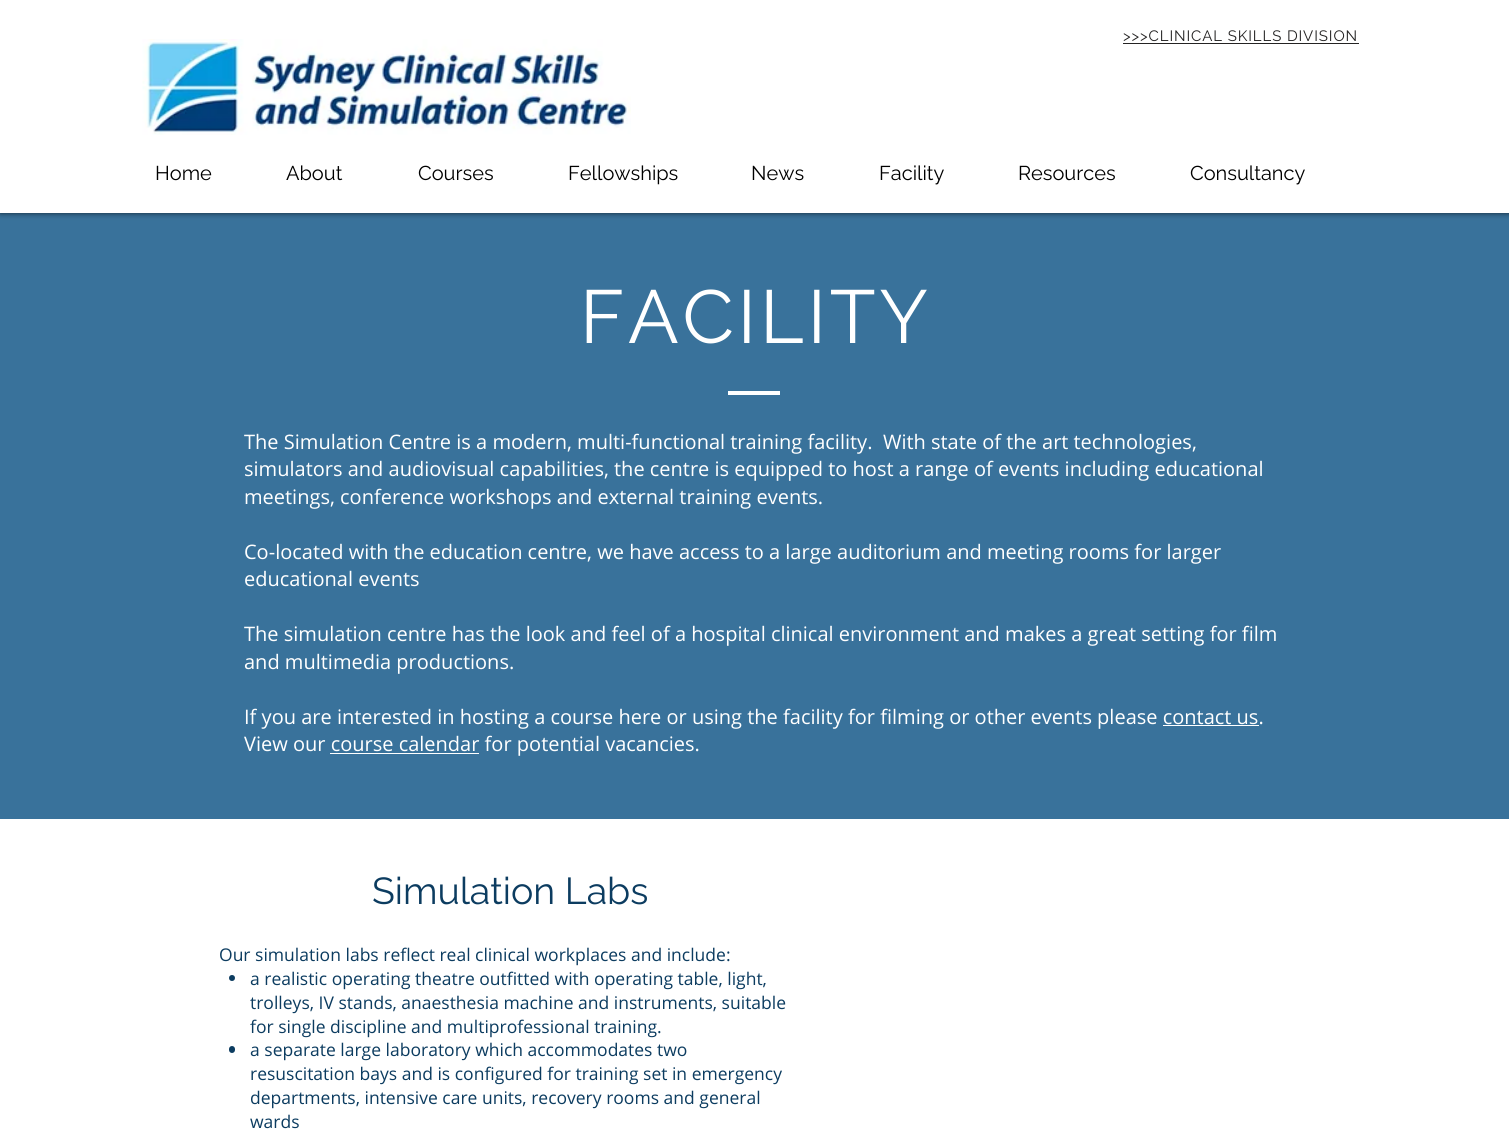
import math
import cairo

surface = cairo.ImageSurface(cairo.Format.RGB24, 1509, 1136)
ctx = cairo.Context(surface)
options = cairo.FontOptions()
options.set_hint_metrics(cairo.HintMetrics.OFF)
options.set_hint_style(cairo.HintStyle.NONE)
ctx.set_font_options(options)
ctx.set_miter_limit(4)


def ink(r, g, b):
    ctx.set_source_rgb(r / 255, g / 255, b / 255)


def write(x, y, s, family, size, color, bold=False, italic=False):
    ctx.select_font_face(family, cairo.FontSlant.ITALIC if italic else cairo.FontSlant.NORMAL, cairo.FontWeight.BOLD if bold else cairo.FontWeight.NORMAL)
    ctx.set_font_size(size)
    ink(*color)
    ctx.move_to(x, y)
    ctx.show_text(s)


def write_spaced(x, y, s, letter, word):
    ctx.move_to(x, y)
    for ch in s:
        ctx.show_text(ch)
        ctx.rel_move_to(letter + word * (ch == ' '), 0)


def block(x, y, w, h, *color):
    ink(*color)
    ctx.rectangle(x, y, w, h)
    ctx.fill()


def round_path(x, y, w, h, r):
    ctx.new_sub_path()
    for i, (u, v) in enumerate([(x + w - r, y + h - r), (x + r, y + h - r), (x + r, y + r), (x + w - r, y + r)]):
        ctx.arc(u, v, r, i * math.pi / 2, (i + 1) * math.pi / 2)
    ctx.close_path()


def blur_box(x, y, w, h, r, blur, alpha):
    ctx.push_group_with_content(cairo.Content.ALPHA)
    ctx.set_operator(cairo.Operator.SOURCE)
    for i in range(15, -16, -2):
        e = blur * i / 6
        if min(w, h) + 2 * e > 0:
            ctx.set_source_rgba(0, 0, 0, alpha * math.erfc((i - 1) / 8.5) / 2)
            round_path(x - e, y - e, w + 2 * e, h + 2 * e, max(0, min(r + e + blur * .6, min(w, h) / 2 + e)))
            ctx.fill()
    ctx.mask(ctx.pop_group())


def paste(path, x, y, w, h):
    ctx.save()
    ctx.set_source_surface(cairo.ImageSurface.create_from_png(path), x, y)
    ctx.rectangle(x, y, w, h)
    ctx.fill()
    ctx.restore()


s1 = dict(family="Raleway", size=20, color=(0, 0, 0))
s2 = dict(family="Open Sans", size=20, color=(255, 255, 255))
s3 = dict(family="Raleway", size=37.5, color=(12, 60, 96))
s4 = dict(family="Open Sans", size=17.5, color=(12, 60, 96))

ink(255, 255, 255)
ctx.paint()
block(0, 213, 1509, 606, 57, 114, 155)
ink(0, 0, 0)
blur_box(0, 0, 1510, 213, 0, 3, 0.7)
block(0, 0, 1509, 213, 255, 255, 255)
ctx.select_font_face("Raleway")
ctx.set_font_size(15)
ink(36, 35, 35)
write_spaced(1123, 41, ">>>CLINICAL SKILLS DIVISION", 0.9, 0)
block(1123, 43, 236, 1, 36, 35, 35)
paste("pic1.png", 142, 39, 489, 96)
write(155, 180, "Home", **s1)
write(286, 180, "About", **s1)
write(418, 180, "Courses", **s1)
write(568, 180, "Fellowships", **s1)
write(751, 180, "News", **s1)
write(879, 180, "Facility", **s1)
write(1018, 180, "Resources", **s1)
write(1190, 180, "Consultancy", **s1)
ctx.set_font_size(75)
ink(255, 255, 255)
write_spaced(580, 343, "FACILITY", 3.75, 0)
block(728, 391, 52, 4, 255, 255, 255)
write(244, 449, "The Simulation Centre is a modern, multi-functional training facility.  With state of the art technologies,", **s2)
write(244, 476, "simulators and audiovisual capabilities, the centre is equipped to host a range of events including educational", **s2)
write(244, 504, "meetings, conference workshops and external training events.", **s2)
write(244, 559, "Co-located with the education centre, we have access to a large auditorium and meeting rooms for larger", **s2)
write(244, 586, "educational events", **s2)
write(244, 641, "The simulation centre has the look and feel of a hospital clinical environment and makes a great setting for film", **s2)
write(244, 669, "and multimedia productions.", **s2)
write(244, 724, "If you are interested in hosting a course here or using the facility for filming or other events please contact us.", **s2)
block(1163, 725, 96, 1, 255, 255, 255)
write(244, 751, "View our course calendar for potential vacancies.", **s2)
block(330, 753, 149, 1, 255, 255, 255)
write(372, 904, "Simulation Labs", **s3)
write(219, 961, "Our simulation labs reflect real clinical workplaces and include:", **s4)
ctx.new_path()
ctx.arc(232, 978, 3, 0, 2 * math.pi)
ctx.fill()
write(250, 985, "a realistic operating theatre outfitted with operating table, light,", **s4)
write(250, 1009, "trolleys, IV stands, anaesthesia machine and instruments, suitable", **s4)
write(250, 1033, "for single discipline and multiprofessional training.", **s4)
round_path(229, 1046, 6, 7, 3)
ctx.fill()
write(250, 1056, "a separate large laboratory which accommodates two", **s4)
write(250, 1080, "resuscitation bays and is configured for training set in emergency", **s4)
write(250, 1104, "departments, intensive care units, recovery rooms and general", **s4)
write(250, 1128, "wards", **s4)
surface.write_to_png("screenshot.png")
